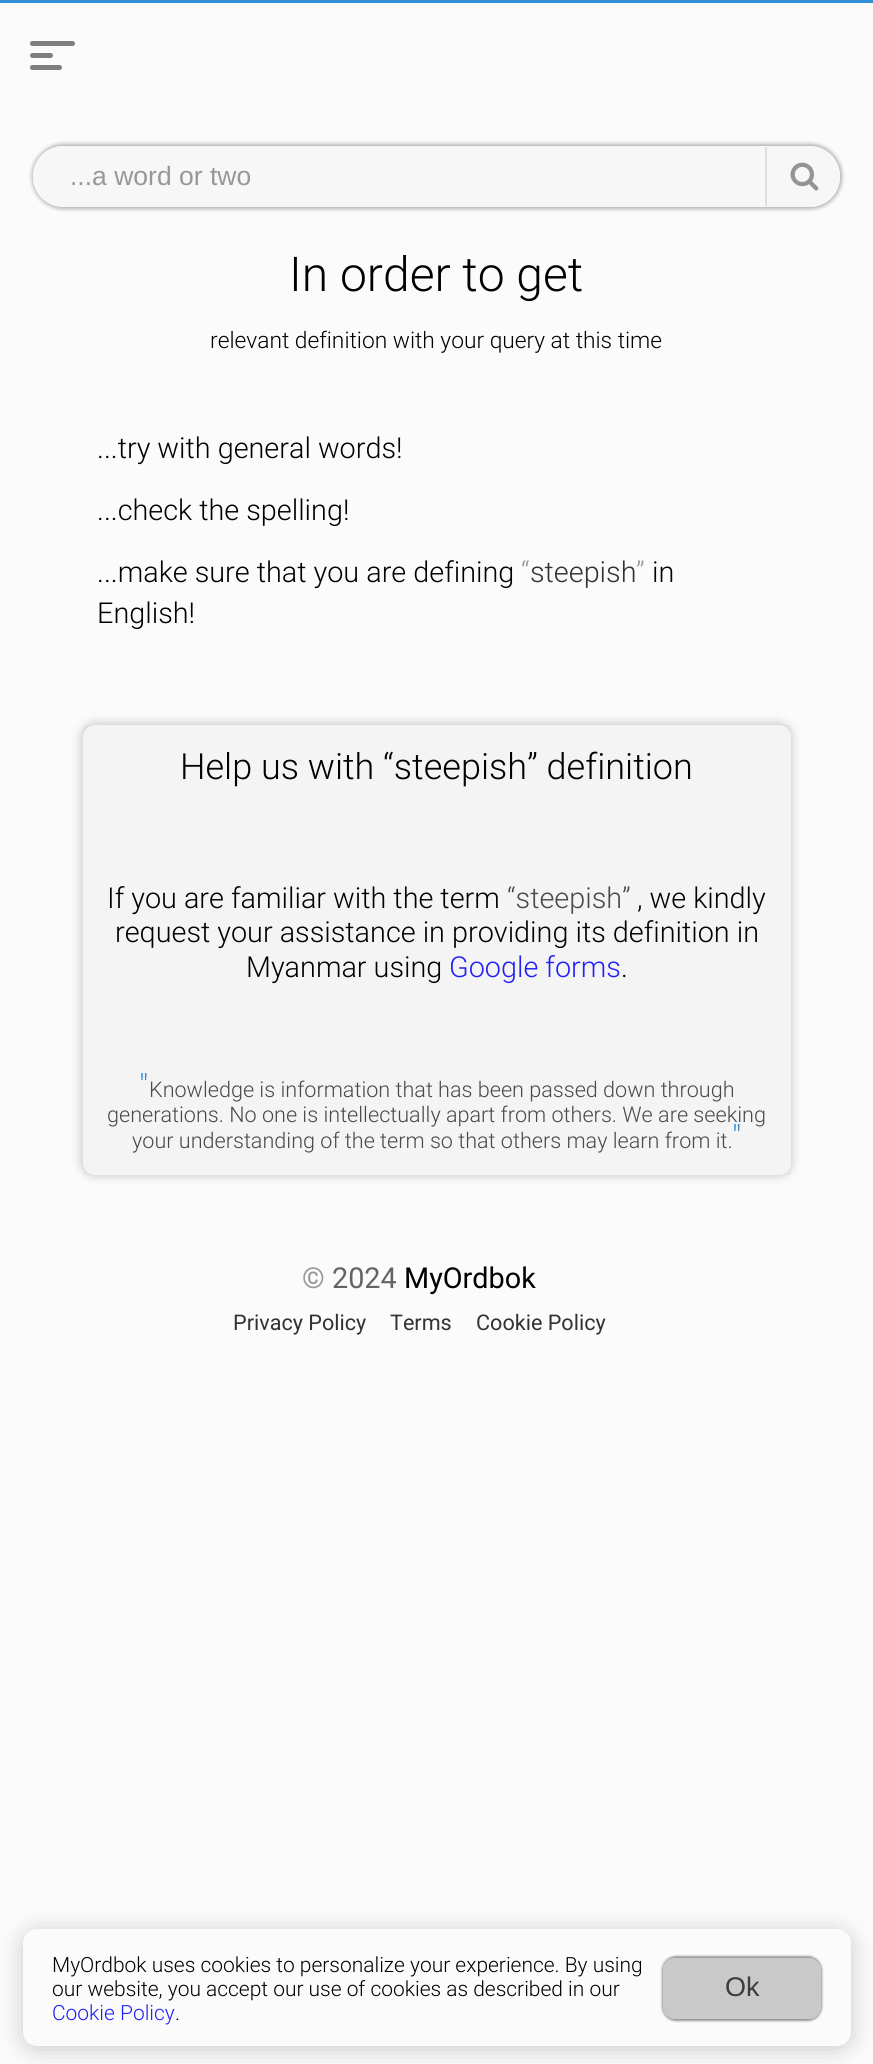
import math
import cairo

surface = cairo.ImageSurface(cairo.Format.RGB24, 873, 2064)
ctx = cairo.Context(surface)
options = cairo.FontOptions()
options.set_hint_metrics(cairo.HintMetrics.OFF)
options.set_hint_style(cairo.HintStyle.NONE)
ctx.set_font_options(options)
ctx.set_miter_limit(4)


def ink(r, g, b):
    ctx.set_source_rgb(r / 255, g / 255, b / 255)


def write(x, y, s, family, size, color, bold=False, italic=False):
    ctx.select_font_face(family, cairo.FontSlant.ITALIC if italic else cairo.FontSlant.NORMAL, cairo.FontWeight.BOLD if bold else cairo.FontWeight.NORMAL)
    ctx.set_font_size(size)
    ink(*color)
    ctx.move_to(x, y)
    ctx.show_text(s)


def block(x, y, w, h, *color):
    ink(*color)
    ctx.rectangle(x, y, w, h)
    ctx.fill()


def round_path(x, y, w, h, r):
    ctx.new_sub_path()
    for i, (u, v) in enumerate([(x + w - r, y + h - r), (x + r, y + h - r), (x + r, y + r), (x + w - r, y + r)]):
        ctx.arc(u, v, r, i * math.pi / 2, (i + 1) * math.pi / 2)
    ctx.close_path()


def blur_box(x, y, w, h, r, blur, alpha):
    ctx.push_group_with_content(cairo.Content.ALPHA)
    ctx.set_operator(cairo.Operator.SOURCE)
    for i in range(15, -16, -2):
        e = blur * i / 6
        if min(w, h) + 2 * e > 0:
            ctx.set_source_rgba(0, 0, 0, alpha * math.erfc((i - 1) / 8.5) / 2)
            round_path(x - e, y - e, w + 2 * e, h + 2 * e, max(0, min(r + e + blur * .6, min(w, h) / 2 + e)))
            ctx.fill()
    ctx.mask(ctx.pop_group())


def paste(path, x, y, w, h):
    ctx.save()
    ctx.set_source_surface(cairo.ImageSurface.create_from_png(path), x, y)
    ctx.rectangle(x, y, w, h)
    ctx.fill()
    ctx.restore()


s1 = dict(family="Liberation Sans", size=26.5, color=(151, 151, 151))
s2 = dict(family="Roboto Light", size=48, color=(0, 0, 0))
s3 = dict(family="Roboto Light", size=22.75, color=(0, 0, 0))
s4 = dict(family="Roboto Light", size=28.8, color=(0, 0, 0))
s5 = dict(family="Roboto Light", size=28.8, color=(151, 151, 151))
s6 = dict(family="Roboto Light", size=28.8, color=(50, 50, 50))
s7 = dict(family="Roboto Light", size=36, color=(0, 0, 0))
s8 = dict(family="Roboto Light", size=28.8, color=(73, 73, 73))
s9 = dict(family="Roboto Light", size=28.8, color=(31, 31, 247))
s10 = dict(family="Roboto Light", size=32, color=(49, 142, 215))
s11 = dict(family="Roboto Light", size=21.6, color=(73, 73, 73))
s12 = dict(family="Roboto", size=28.8, color=(151, 151, 151))
s13 = dict(family="Roboto", size=28.8, color=(101, 100, 100))
s14 = dict(family="Roboto", size=28.8, color=(0, 0, 0))
s15 = dict(family="Roboto", size=21.6, color=(50, 50, 50))
s16 = dict(family="Roboto Light", size=20.95, color=(0, 0, 0))
s17 = dict(family="Roboto Light", size=20.95, color=(31, 31, 247))
s18 = dict(family="Liberation Sans", size=27, color=(60, 60, 60))

ink(252, 251, 251)
ctx.paint()
block(0, 0, 873, 3, 51, 144, 215)
ink(126, 126, 126)
round_path(30, 41, 45, 5, 2.5)
ctx.fill()
round_path(30, 53, 23, 5, 2.5)
ctx.fill()
round_path(30, 65, 32, 5, 2.5)
ctx.fill()
ctx.save()
ctx.set_fill_rule(cairo.FillRule.EVEN_ODD)
ctx.new_path()
ctx.move_to(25, 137)
ctx.line_to(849, 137)
ctx.line_to(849, 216)
ctx.line_to(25, 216)
ctx.close_path()
ctx.move_to(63, 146)
ctx.line_to(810, 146)
ctx.curve_to(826.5, 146, 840, 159.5, 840, 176)
ctx.line_to(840, 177)
ctx.curve_to(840, 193.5, 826.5, 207, 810, 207)
ctx.line_to(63, 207)
ctx.curve_to(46.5, 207, 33, 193.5, 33, 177)
ctx.line_to(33, 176)
ctx.curve_to(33, 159.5, 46.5, 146, 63, 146)
ctx.close_path()
ctx.clip()
ink(0, 0, 0)
blur_box(32, 144, 810, 65, 32, 2, 0.3)
ctx.restore()
ctx.set_source_rgba(0.933, 0.933, 0.933, 0.3)
round_path(33, 146, 807, 61, 30)
ctx.fill()
write(70, 185, "...a word or two", **s1)
block(765, 147, 2, 59, 223, 222, 222)
paste("pic1.png", 790, 162, 29, 29)
write(289, 291, "In order to get", **s2)
write(210, 348, "relevant definition with your query at this time", **s3)
write(97, 458, "...try with general words!", **s4)
write(97, 520, "...check the spelling!", **s4)
write(97, 582, "...make sure that you are defining", **s4)
write(521, 582, "“", **s5)
write(530, 582, "steepish", **s6)
write(636, 582, "”", **s5)
write(652, 582, "in", **s4)
write(97, 623, "English!", **s4)
ctx.save()
ctx.set_fill_rule(cairo.FillRule.EVEN_ODD)
ctx.new_path()
ctx.move_to(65, 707)
ctx.line_to(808, 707)
ctx.line_to(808, 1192)
ctx.line_to(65, 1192)
ctx.close_path()
ctx.move_to(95, 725)
ctx.line_to(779, 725)
ctx.curve_to(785.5, 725, 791, 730.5, 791, 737)
ctx.line_to(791, 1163)
ctx.curve_to(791, 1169.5, 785.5, 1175, 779, 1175)
ctx.line_to(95, 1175)
ctx.curve_to(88.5, 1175, 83, 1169.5, 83, 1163)
ctx.line_to(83, 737)
ctx.curve_to(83, 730.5, 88.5, 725, 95, 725)
ctx.close_path()
ctx.clip()
ink(0, 0, 0)
blur_box(81, 723, 711, 453, 14, 5, 0.2)
ctx.restore()
ctx.set_source_rgba(0, 0, 0, 0.03)
ctx.rectangle(83, 725, 708, 450)
ctx.fill()
write(180, 779, "Help us with “steepish” definition", **s7)
write(107, 908, "If you are familiar with the term", **s4)
write(507, 908, "“steepish”", **s8)
write(637, 908, ", we kindly", **s4)
write(115, 942, "request your assistance in providing its definition in", **s4)
write(246, 977, "Myanmar using", **s4)
write(449, 977, "Google forms", **s9)
write(621, 977, ".", **s4)
write(139, 1097, "\"", **s10)
write(149, 1097, "Knowledge is information that has been passed down through", **s11)
write(107, 1122, "generations. No one is intellectually apart from others. We are seeking", **s11)
write(732, 1148, "\"", **s10)
write(132, 1148, "your understanding of the term so that others may learn from it.", **s11)
write(302, 1288, "©", **s12)
write(332, 1288, "2024", **s13)
write(404, 1288, "MyOrdbok", **s14)
write(233, 1330, "Privacy Policy", **s15)
write(390, 1330, "Terms", **s15)
write(476, 1330, "Cookie Policy", **s15)
ink(0, 0, 0)
blur_box(23, 1932, 828, 117, 14, 12, 0.2)
ink(252, 251, 251)
round_path(23, 1929, 828, 117, 14)
ctx.fill()
write(52, 1972, "MyOrdbok uses cookies to personalize your experience. By using", **s16)
write(52, 1996, "our website, you accept our use of cookies as described in our", **s16)
write(52, 2020, "Cookie Policy", **s17)
write(175, 2020, ".", **s16)
ctx.save()
ctx.set_fill_rule(cairo.FillRule.EVEN_ODD)
ctx.new_path()
ctx.move_to(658, 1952)
ctx.line_to(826, 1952)
ctx.line_to(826, 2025)
ctx.line_to(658, 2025)
ctx.close_path()
ctx.move_to(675, 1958)
ctx.line_to(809, 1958)
ctx.curve_to(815.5, 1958, 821, 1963.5, 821, 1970)
ctx.line_to(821, 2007)
ctx.curve_to(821, 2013.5, 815.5, 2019, 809, 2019)
ctx.line_to(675, 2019)
ctx.curve_to(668.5, 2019, 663, 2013.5, 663, 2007)
ctx.line_to(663, 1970)
ctx.curve_to(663, 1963.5, 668.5, 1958, 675, 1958)
ctx.close_path()
ctx.clip()
ink(0, 0, 0)
blur_box(662, 1956, 160, 65, 14, 1, 0.4)
ctx.restore()
ctx.set_source_rgba(0, 0, 0, 0.2)
round_path(663, 1958, 158, 61, 12)
ctx.fill()
write(725, 1996, "Ok", **s18)
surface.write_to_png("screenshot.png")
